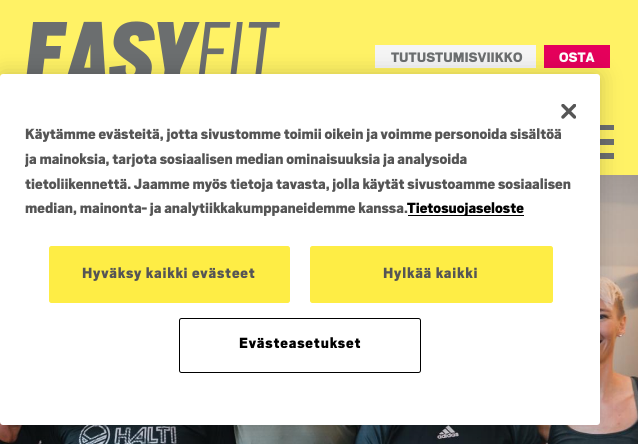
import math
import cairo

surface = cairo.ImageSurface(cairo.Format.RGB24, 638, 444)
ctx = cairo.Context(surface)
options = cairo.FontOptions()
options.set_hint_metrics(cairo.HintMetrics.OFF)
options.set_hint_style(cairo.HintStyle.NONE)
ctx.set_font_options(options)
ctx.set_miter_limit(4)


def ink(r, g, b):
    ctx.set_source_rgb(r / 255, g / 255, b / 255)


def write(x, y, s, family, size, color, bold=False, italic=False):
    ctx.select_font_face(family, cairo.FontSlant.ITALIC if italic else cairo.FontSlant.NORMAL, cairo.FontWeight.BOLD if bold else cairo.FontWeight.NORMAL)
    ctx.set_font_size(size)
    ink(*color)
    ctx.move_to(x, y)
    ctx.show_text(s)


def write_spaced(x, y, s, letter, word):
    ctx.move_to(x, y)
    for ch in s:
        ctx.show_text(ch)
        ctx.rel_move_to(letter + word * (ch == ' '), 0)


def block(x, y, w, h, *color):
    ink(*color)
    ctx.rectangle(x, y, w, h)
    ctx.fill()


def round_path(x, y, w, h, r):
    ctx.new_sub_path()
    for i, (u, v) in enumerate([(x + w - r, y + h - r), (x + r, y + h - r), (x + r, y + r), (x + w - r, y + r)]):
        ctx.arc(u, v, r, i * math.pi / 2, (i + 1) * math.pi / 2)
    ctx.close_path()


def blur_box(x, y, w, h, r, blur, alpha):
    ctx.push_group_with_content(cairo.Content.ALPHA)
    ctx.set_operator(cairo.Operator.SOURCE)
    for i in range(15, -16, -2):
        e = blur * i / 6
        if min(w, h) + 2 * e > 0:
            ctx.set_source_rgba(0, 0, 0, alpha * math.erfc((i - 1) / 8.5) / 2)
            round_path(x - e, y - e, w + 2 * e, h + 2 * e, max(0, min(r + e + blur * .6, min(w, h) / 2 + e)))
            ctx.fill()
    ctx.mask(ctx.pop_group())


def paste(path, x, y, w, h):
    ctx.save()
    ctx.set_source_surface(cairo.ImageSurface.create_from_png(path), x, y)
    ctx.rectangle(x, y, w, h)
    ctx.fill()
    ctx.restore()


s1 = dict(family="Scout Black", size=15.25, color=(107, 110, 111))
s2 = dict(family="Scout Black", size=15.25, color=(255, 255, 255))
s3 = dict(family="Scout Black", size=16.4, color=(85, 85, 85))
s4 = dict(family="Scout Black", size=16.4, color=(0, 0, 0))

ink(255, 242, 101)
ctx.paint()
paste("pic1.png", 26, 21, 254, 53)
block(375, 45, 161, 23, 245, 245, 245)
write(391, 62, "TUTUSTUMISVIIKKO", **s1)
block(544, 45, 66, 23, 229, 0, 91)
write(559, 62, "OSTA", **s2)
block(600, 125, 14, 5, 107, 110, 111)
block(600, 139, 14, 6, 107, 110, 111)
block(600, 153, 14, 6, 107, 110, 111)
paste("pic2.png", 0, 175, 638, 269)
ink(0, 0, 0)
blur_box(0, 74, 600, 351, 3, 11, 0.2)
ink(255, 255, 255)
round_path(0, 74, 600, 351, 3)
ctx.fill()
paste("pic3.png", 561, 104, 15, 15)
write(25, 139, "Käytämme evästeitä, jotta sivustomme toimii oikein ja voimme personoida sisältöä", **s3)
write(25, 164, "ja mainoksia, tarjota sosiaalisen median ominaisuuksia ja analysoida", **s3)
write(25, 189, "tietoliikennettä. Jaamme myös tietoja tavasta, jolla käytät sivustoamme sosiaalisen", **s3)
write(25, 213, "median, mainonta- ja analytiikkakumppaneidemme kanssa.", **s3)
block(408, 215, 116, 1, 0, 0, 0)
write(407, 213, "Tietosuojaseloste", **s4)
ink(254, 237, 69)
round_path(49.5, 246.5, 240, 56, 2)
ctx.fill_preserve()
ctx.set_line_width(1)
ctx.stroke()
ink(85, 85, 85)
write_spaced(82, 278, "Hyväksy kaikki evästeet", 0.8, 0)
ink(254, 237, 69)
round_path(310.5, 246.5, 242, 56, 2)
ctx.fill_preserve()
ctx.stroke()
ink(85, 85, 85)
write_spaced(383, 278, "Hylkää kaikki", 0.8, 0)
round_path(179.5, 318.5, 241, 54, 2)
ink(0, 0, 0)
ctx.stroke()
write_spaced(239, 348, "Evästeasetukset", 0.8, 0)
surface.write_to_png("screenshot.png")
